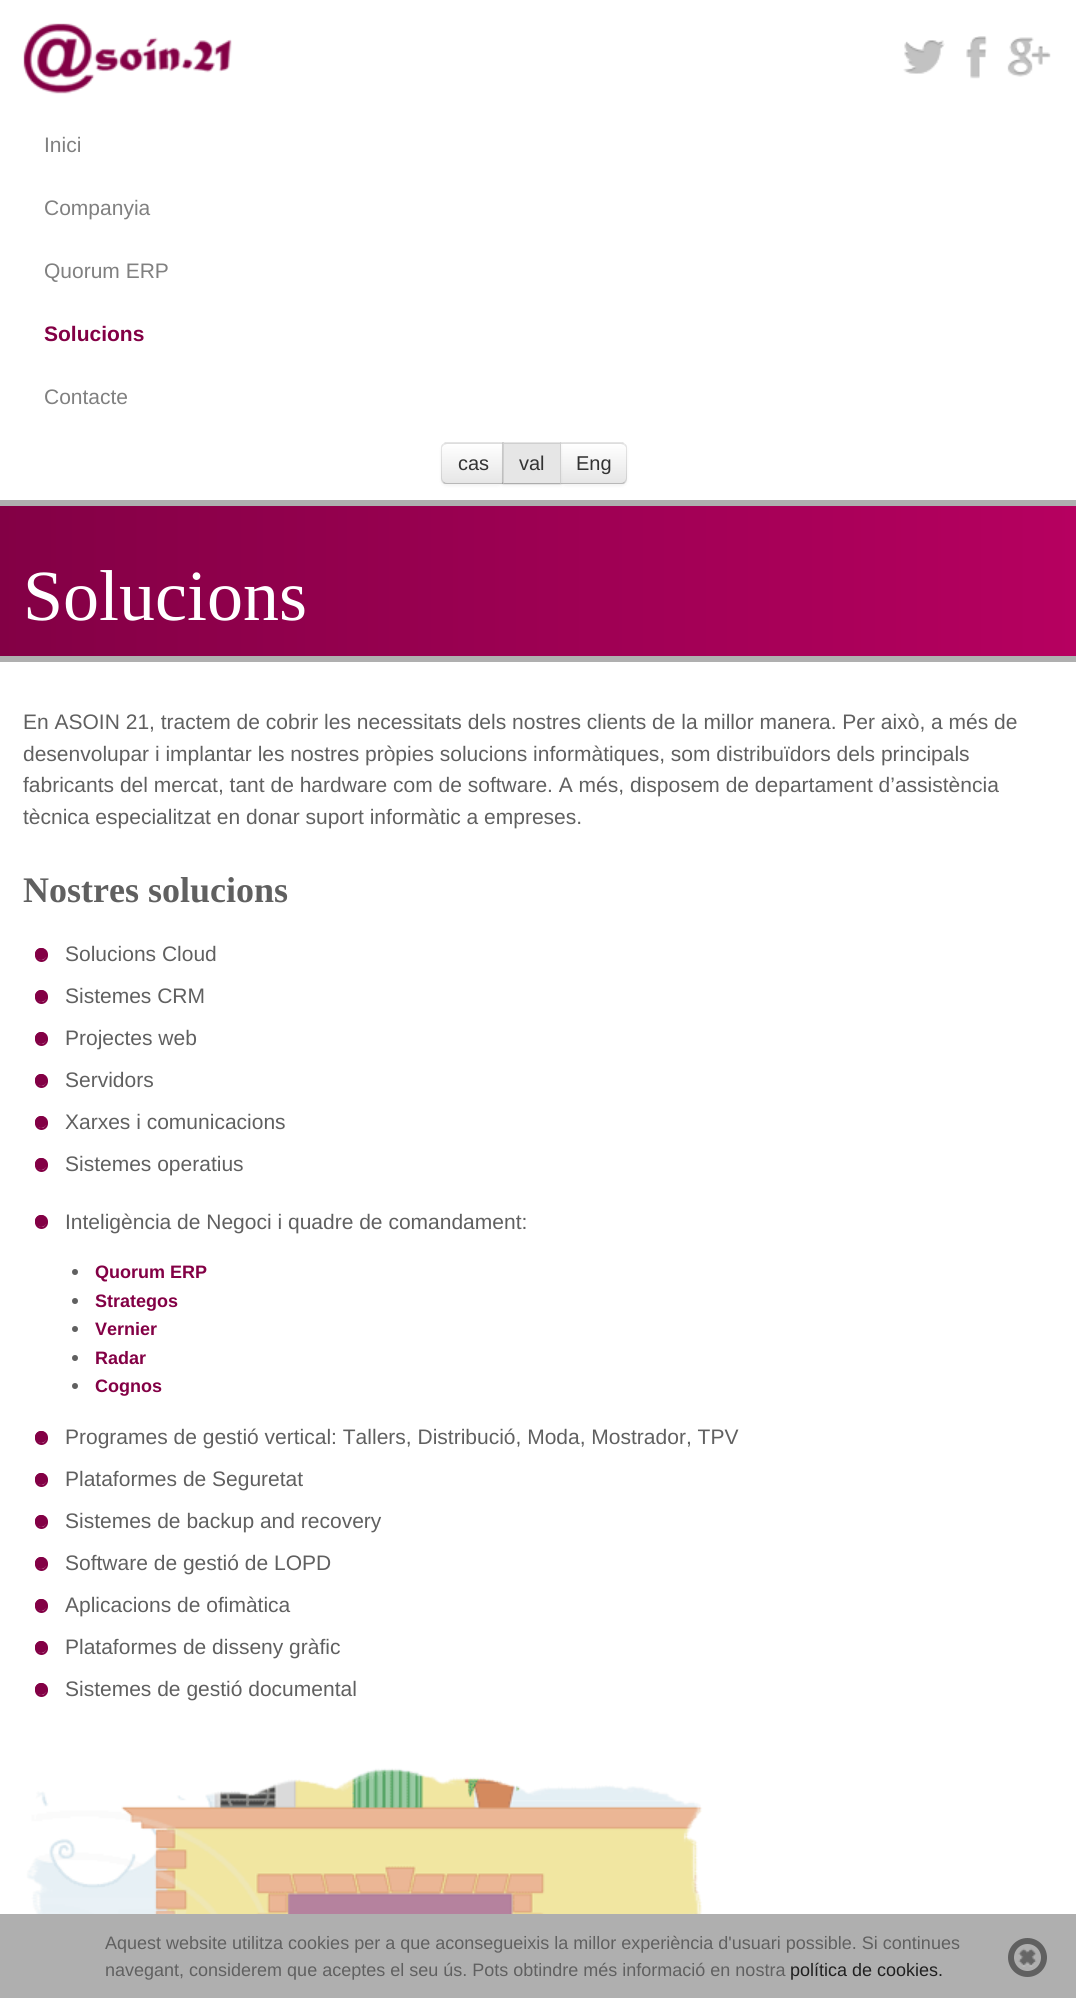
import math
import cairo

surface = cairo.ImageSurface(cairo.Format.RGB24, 1076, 1998)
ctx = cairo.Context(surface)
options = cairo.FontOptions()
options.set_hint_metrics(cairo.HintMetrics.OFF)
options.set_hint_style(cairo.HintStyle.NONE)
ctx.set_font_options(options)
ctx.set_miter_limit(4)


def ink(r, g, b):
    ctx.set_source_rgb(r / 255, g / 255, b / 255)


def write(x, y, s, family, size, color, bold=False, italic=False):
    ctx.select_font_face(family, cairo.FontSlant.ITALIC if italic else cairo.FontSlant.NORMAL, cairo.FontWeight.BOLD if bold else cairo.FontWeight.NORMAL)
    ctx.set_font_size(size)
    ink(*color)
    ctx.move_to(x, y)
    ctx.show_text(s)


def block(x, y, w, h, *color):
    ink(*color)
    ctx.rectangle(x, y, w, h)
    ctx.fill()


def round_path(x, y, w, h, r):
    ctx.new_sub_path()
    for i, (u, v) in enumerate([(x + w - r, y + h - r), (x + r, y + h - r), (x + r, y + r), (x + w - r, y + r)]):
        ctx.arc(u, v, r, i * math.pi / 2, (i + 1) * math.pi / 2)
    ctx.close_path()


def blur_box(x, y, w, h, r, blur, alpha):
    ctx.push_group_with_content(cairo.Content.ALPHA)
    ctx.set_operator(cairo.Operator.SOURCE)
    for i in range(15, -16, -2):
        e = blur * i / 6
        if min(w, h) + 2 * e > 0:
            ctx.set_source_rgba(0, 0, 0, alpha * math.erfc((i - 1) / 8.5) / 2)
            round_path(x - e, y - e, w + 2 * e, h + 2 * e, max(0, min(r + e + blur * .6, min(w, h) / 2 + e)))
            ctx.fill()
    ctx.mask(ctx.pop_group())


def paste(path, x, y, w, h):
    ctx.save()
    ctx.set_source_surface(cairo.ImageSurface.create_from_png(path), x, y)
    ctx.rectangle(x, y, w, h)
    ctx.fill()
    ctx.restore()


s1 = dict(family="Liberation Sans", size=21, color=(128, 128, 128))
s2 = dict(family="Liberation Sans", size=21, color=(131, 0, 69), bold=True)
s3 = dict(family="Liberation Sans", size=20, color=(51, 51, 51))
s4 = dict(family="Liberation Serif", size=72, color=(255, 255, 255))
s5 = dict(family="Liberation Sans", size=21, color=(96, 96, 96))
s6 = dict(family="Liberation Serif", size=36, color=(96, 96, 96), bold=True)
s7 = dict(family="Liberation Sans", size=18, color=(131, 0, 69), bold=True)
s8 = dict(family="Liberation Sans", size=18, color=(96, 96, 96))
s9 = dict(family="Liberation Sans", size=18, color=(32, 32, 32))

ink(255, 255, 255)
ctx.paint()
paste("pic1.png", 23, 23, 209, 71)
paste("pic2.png", 903, 40, 42, 34)
paste("pic3.png", 966, 36, 21, 43)
paste("pic4.png", 1007, 37, 44, 40)
write(44, 152, "Inici", **s1)
write(44, 215, "Companyia", **s1)
write(44, 278, "Quorum ERP", **s1)
write(44, 341, "Solucions", **s2)
write(44, 404, "Contacte", **s1)
ink(0, 0, 0)
blur_box(441, 444, 63, 42, 6, 1.5, 0.05)
ink(245, 245, 245)
ctx.new_path()
ctx.move_to(447, 443)
ctx.line_to(504, 443)
ctx.line_to(504, 485)
ctx.line_to(447, 485)
ctx.curve_to(443.5, 485, 441, 482.5, 441, 479)
ctx.line_to(441, 449)
ctx.curve_to(441, 445.5, 443.5, 443, 447, 443)
ctx.close_path()
ctx.fill()
ctx.save()
ctx.new_path()
ctx.move_to(447, 443)
ctx.line_to(504, 443)
ctx.line_to(504, 485)
ctx.line_to(447, 485)
ctx.curve_to(443.5, 485, 441, 482.5, 441, 479)
ctx.line_to(441, 449)
ctx.curve_to(441, 445.5, 443.5, 443, 447, 443)
ctx.close_path()
ctx.clip()
gradient = cairo.LinearGradient(473, 444, 473, 483)
gradient.add_color_stop_rgba(0, 1, 1, 1, 1)
gradient.add_color_stop_rgba(1, 0.902, 0.902, 0.902, 1)
ctx.set_source(gradient)
ctx.rectangle(441, 444, 62, 39)
ctx.fill()
ctx.restore()
ctx.set_source_rgba(1, 1, 1, 0.2)
ctx.new_path()
ctx.move_to(447, 446)
ctx.line_to(502, 446)
ctx.line_to(502, 483)
ctx.line_to(503, 483)
ctx.line_to(503, 444)
ctx.line_to(448, 444)
ctx.curve_to(446, 444, 444, 446, 443, 448)
ctx.curve_to(444, 447, 446, 446, 447, 446)
ctx.close_path()
ctx.fill()
ctx.set_source_rgba(0, 0, 0, 0.1)
ctx.new_path()
ctx.move_to(447, 444)
ctx.line_to(444, 445)
ctx.line_to(443, 444)
ctx.line_to(445, 442)
ctx.line_to(504, 442)
ctx.line_to(502, 444)
ctx.close_path()
ctx.fill()
ctx.new_path()
ctx.move_to(504, 442)
ctx.line_to(502, 444)
ctx.line_to(502, 482)
ctx.line_to(504, 484)
ctx.close_path()
ctx.fill()
ctx.set_source_rgba(0, 0, 0, 0.25)
ctx.new_path()
ctx.move_to(504, 484)
ctx.line_to(447, 484)
ctx.curve_to(446, 484, 444, 484, 443, 483)
ctx.line_to(444, 482)
ctx.curve_to(445, 483, 446, 483, 447, 483)
ctx.line_to(502, 483)
ctx.line_to(502, 482)
ctx.close_path()
ctx.fill()
ctx.set_source_rgba(0, 0, 0, 0.1)
ctx.new_path()
ctx.move_to(441, 448)
ctx.line_to(441, 478)
ctx.curve_to(441, 480, 442, 481.5, 443, 482.5)
ctx.line_to(444, 481.5)
ctx.curve_to(443, 481, 442, 479.5, 442, 478)
ctx.line_to(442, 448)
ctx.curve_to(442, 447, 443, 446, 444, 445)
ctx.line_to(442.5, 444)
ctx.curve_to(441.5, 445, 441, 446.5, 441, 448)
ctx.close_path()
ctx.fill()
write(458, 470, "cas", **s3)
ink(0, 0, 0)
blur_box(560, 444, 67, 42, 6, 1.5, 0.05)
ink(245, 245, 245)
ctx.new_path()
ctx.move_to(560, 443)
ctx.line_to(621, 443)
ctx.curve_to(624.5, 443, 627, 445.5, 627, 449)
ctx.line_to(627, 479)
ctx.curve_to(627, 482.5, 624.5, 485, 621, 485)
ctx.line_to(560, 485)
ctx.close_path()
ctx.fill()
ctx.save()
ctx.new_path()
ctx.move_to(560, 443)
ctx.line_to(621, 443)
ctx.curve_to(624.5, 443, 627, 445.5, 627, 449)
ctx.line_to(627, 479)
ctx.curve_to(627, 482.5, 624.5, 485, 621, 485)
ctx.line_to(560, 485)
ctx.close_path()
ctx.clip()
gradient = cairo.LinearGradient(593, 444, 593, 483)
gradient.add_color_stop_rgba(0, 1, 1, 1, 1)
gradient.add_color_stop_rgba(1, 0.902, 0.902, 0.902, 1)
ctx.set_source(gradient)
ctx.rectangle(561, 444, 66, 39)
ctx.fill()
ctx.restore()
ctx.set_source_rgba(0, 0, 0, 0.1)
ctx.new_path()
ctx.move_to(561, 444)
ctx.line_to(560, 442)
ctx.line_to(623, 442)
ctx.line_to(625, 444)
ctx.line_to(624, 445)
ctx.line_to(621, 444)
ctx.close_path()
ctx.fill()
ctx.new_path()
ctx.move_to(627, 478)
ctx.line_to(627, 448)
ctx.curve_to(627, 446.5, 626.5, 445, 625.5, 444)
ctx.line_to(624, 445)
ctx.curve_to(625, 446, 626, 447, 626, 448)
ctx.line_to(626, 478)
ctx.curve_to(626, 479.5, 625, 481, 624, 481.5)
ctx.line_to(625, 482.5)
ctx.curve_to(626, 481.5, 627, 480, 627, 478)
ctx.close_path()
ctx.fill()
ctx.set_source_rgba(0, 0, 0, 0.25)
ctx.new_path()
ctx.move_to(625, 483)
ctx.curve_to(624, 484, 622, 484, 621, 484)
ctx.line_to(560, 484)
ctx.line_to(561, 483)
ctx.line_to(621, 483)
ctx.curve_to(622, 483, 623, 483, 624, 482)
ctx.close_path()
ctx.fill()
ink(0, 0, 0)
blur_box(503, 444, 58, 42, 0, 1.5, 0.05)
block(503, 443, 58, 42, 230, 230, 230)
ctx.set_source_rgba(0, 0, 0, 0.1)
ctx.new_path()
ctx.move_to(502, 442)
ctx.line_to(561, 442)
ctx.line_to(560, 444)
ctx.line_to(504, 444)
ctx.close_path()
ctx.fill()
ctx.new_path()
ctx.move_to(561, 442)
ctx.line_to(561, 484)
ctx.line_to(560, 483)
ctx.line_to(560, 444)
ctx.close_path()
ctx.fill()
ctx.set_source_rgba(0, 0, 0, 0.25)
ctx.new_path()
ctx.move_to(561, 484)
ctx.line_to(502, 484)
ctx.line_to(504, 483)
ctx.line_to(560, 483)
ctx.close_path()
ctx.fill()
ctx.set_source_rgba(0, 0, 0, 0.1)
ctx.new_path()
ctx.move_to(502, 484)
ctx.line_to(502, 442)
ctx.line_to(504, 444)
ctx.line_to(504, 483)
ctx.close_path()
ctx.fill()
write(519, 470, "val", **s3)
write(576, 470, "Eng", **s3)
gradient = cairo.LinearGradient(0, 581, 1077, 581)
gradient.add_color_stop_rgba(0, 0.514, 0, 0.271, 1)
gradient.add_color_stop_rgba(1, 0.714, 0, 0.376, 1)
ctx.set_source(gradient)
ctx.rectangle(0, 506, 1076, 150)
ctx.fill()
block(0, 500, 1076, 6, 175, 175, 175)
block(0, 656, 1076, 6, 175, 175, 175)
write(23, 620, "Solucions", **s4)
write(23, 729, "En ASOIN 21, tractem de cobrir les necessitats dels nostres clients de la millor manera. Per això, a més de", **s5)
write(23, 761, "desenvolupar i implantar les nostres pròpies solucions informàtiques, som distribuïdors dels principals", **s5)
write(23, 792, "fabricants del mercat, tant de hardware com de software. A més, disposem de departament d’assistència", **s5)
write(23, 824, "tècnica especialitzat en donar suport informàtic a empreses.", **s5)
write(23, 902, "Nostres solucions", **s6)
round_path(36, 949, 11, 12, 5.5)
ink(131, 0, 69)
ctx.stroke()
write(65, 961, "Solucions Cloud", **s5)
ink(131, 0, 69)
ctx.new_path()
ctx.arc(41, 954, 6, 0, 2 * math.pi)
ctx.fill()
round_path(36, 991, 11, 12, 5.5)
ctx.stroke()
write(65, 1003, "Sistemes CRM", **s5)
ink(131, 0, 69)
ctx.new_path()
ctx.arc(41, 996, 6, 0, 2 * math.pi)
ctx.fill()
round_path(36, 1033, 11, 12, 5.5)
ctx.stroke()
write(65, 1045, "Projectes web", **s5)
ink(131, 0, 69)
ctx.new_path()
ctx.arc(41, 1038, 6, 0, 2 * math.pi)
ctx.fill()
round_path(36, 1075, 11, 12, 5.5)
ctx.stroke()
write(65, 1087, "Servidors", **s5)
ink(131, 0, 69)
ctx.new_path()
ctx.arc(41, 1080, 6, 0, 2 * math.pi)
ctx.fill()
round_path(36, 1117, 11, 12, 5.5)
ctx.stroke()
write(65, 1129, "Xarxes i comunicacions", **s5)
ink(131, 0, 69)
ctx.new_path()
ctx.arc(41, 1122, 6, 0, 2 * math.pi)
ctx.fill()
round_path(36, 1159, 11, 12, 5.5)
ctx.stroke()
write(65, 1171, "Sistemes operatius", **s5)
ink(131, 0, 69)
ctx.new_path()
ctx.arc(41, 1164, 6, 0, 2 * math.pi)
ctx.fill()
round_path(36, 1216, 11, 12, 5.5)
ctx.stroke()
write(65, 1229, "Inteligència de Negoci i quadre de comandament:", **s5)
ink(131, 0, 69)
ctx.new_path()
ctx.arc(41, 1221, 6, 0, 2 * math.pi)
ctx.fill()
ink(96, 96, 96)
ctx.arc(75, 1272, 3, 0, 2 * math.pi)
ctx.fill()
write(95, 1278, "Quorum ERP", **s7)
ink(96, 96, 96)
ctx.new_path()
ctx.arc(75, 1301, 3, 0, 2 * math.pi)
ctx.fill()
write(95, 1307, "Strategos", **s7)
ink(96, 96, 96)
ctx.new_path()
ctx.arc(75, 1329, 3, 0, 2 * math.pi)
ctx.fill()
write(95, 1335, "Vernier", **s7)
ink(96, 96, 96)
ctx.new_path()
ctx.arc(75, 1358, 3, 0, 2 * math.pi)
ctx.fill()
write(95, 1364, "Radar", **s7)
ink(96, 96, 96)
ctx.new_path()
ctx.arc(75, 1386, 3, 0, 2 * math.pi)
ctx.fill()
write(95, 1392, "Cognos", **s7)
round_path(36, 1432, 11, 12, 5.5)
ctx.stroke()
write(65, 1444, "Programes de gestió vertical: Tallers, Distribució, Moda, Mostrador, TPV", **s5)
ink(131, 0, 69)
ctx.new_path()
ctx.arc(41, 1437, 6, 0, 2 * math.pi)
ctx.fill()
round_path(36, 1474, 11, 12, 5.5)
ctx.stroke()
write(65, 1486, "Plataformes de Seguretat", **s5)
ink(131, 0, 69)
ctx.new_path()
ctx.arc(41, 1479, 6, 0, 2 * math.pi)
ctx.fill()
round_path(36, 1516, 11, 12, 5.5)
ctx.stroke()
write(65, 1528, "Sistemes de backup and recovery", **s5)
ink(131, 0, 69)
ctx.new_path()
ctx.arc(41, 1521, 6, 0, 2 * math.pi)
ctx.fill()
round_path(36, 1558, 11, 12, 5.5)
ctx.stroke()
write(65, 1570, "Software de gestió de LOPD", **s5)
ink(131, 0, 69)
ctx.new_path()
ctx.arc(41, 1563, 6, 0, 2 * math.pi)
ctx.fill()
round_path(36, 1600, 11, 12, 5.5)
ctx.stroke()
write(65, 1612, "Aplicacions de ofimàtica", **s5)
ink(131, 0, 69)
ctx.new_path()
ctx.arc(41, 1605, 6, 0, 2 * math.pi)
ctx.fill()
round_path(36, 1642, 11, 12, 5.5)
ctx.stroke()
write(65, 1654, "Plataformes de disseny gràfic", **s5)
ink(131, 0, 69)
ctx.new_path()
ctx.arc(41, 1647, 6, 0, 2 * math.pi)
ctx.fill()
round_path(36, 1684, 11, 12, 5.5)
ctx.stroke()
write(65, 1696, "Sistemes de gestió documental", **s5)
ink(131, 0, 69)
ctx.new_path()
ctx.arc(41, 1689, 6, 0, 2 * math.pi)
ctx.fill()
paste("pic5.png", 25, 1768, 678, 146)
block(0, 1914, 1076, 84, 175, 175, 175)
write(105, 1949, "Aquest website utilitza cookies per a que aconsegueixis la millor experiència d'usuari possible. Si continues", **s8)
write(105, 1976, "navegant, considerem que aceptes el seu ús. Pots obtindre més informació en nostra", **s8)
write(790, 1976, "política de cookies.", **s9)
paste("pic6.png", 1018, 1948, 29, 19)
ctx.arc(1027.5, 1957.5, 16.5, 0, 2 * math.pi)
ink(96, 96, 96)
ctx.set_line_width(6)
ctx.stroke()
surface.write_to_png("screenshot.png")
